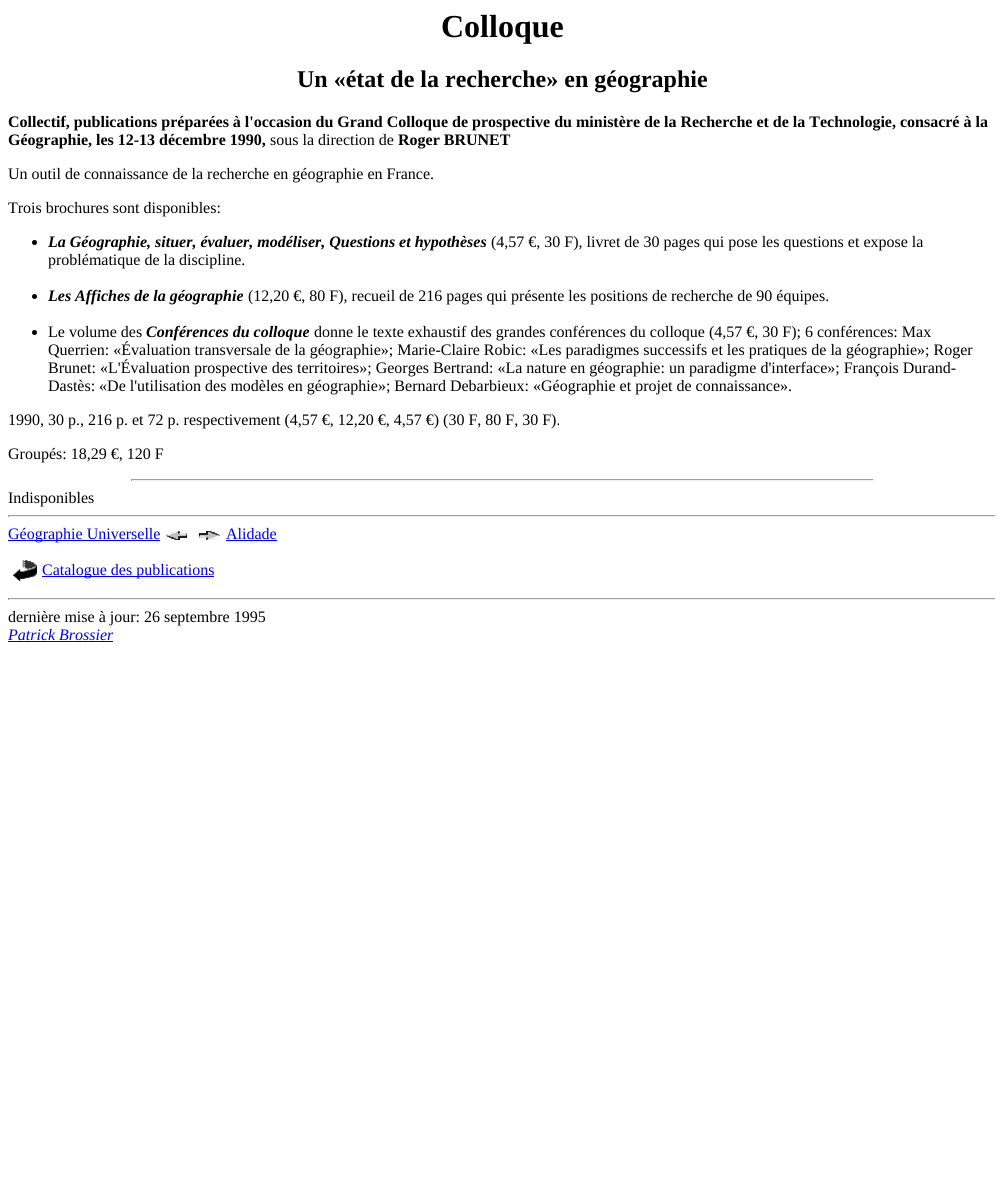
import math
import cairo

surface = cairo.ImageSurface(cairo.Format.RGB24, 1004, 1191)
ctx = cairo.Context(surface)
options = cairo.FontOptions()
options.set_hint_metrics(cairo.HintMetrics.OFF)
options.set_hint_style(cairo.HintStyle.NONE)
ctx.set_font_options(options)
ctx.set_miter_limit(4)


def ink(r, g, b):
    ctx.set_source_rgb(r / 255, g / 255, b / 255)


def write(x, y, s, family, size, color, bold=False, italic=False):
    ctx.select_font_face(family, cairo.FontSlant.ITALIC if italic else cairo.FontSlant.NORMAL, cairo.FontWeight.BOLD if bold else cairo.FontWeight.NORMAL)
    ctx.set_font_size(size)
    ink(*color)
    ctx.move_to(x, y)
    ctx.show_text(s)


def block(x, y, w, h, *color):
    ink(*color)
    ctx.rectangle(x, y, w, h)
    ctx.fill()


def paste(path, x, y, w, h):
    ctx.save()
    ctx.set_source_surface(cairo.ImageSurface.create_from_png(path), x, y)
    ctx.rectangle(x, y, w, h)
    ctx.fill()
    ctx.restore()


s1 = dict(family="Liberation Serif", size=32, color=(0, 0, 0), bold=True)
s2 = dict(family="Liberation Serif", size=24, color=(0, 0, 0), bold=True)
s3 = dict(family="Liberation Serif", size=16, color=(0, 0, 0), bold=True)
s4 = dict(family="Liberation Serif", size=16, color=(0, 0, 0))
s5 = dict(family="Liberation Serif", size=16, color=(0, 0, 0), bold=True, italic=True)
s6 = dict(family="Liberation Serif", size=16, color=(0, 0, 238))
s7 = dict(family="Liberation Serif", size=16, color=(0, 0, 238), italic=True)

ink(255, 255, 255)
ctx.paint()
write(441, 37, "Colloque", **s1)
write(297, 87, "Un «état de la recherche» en géographie", **s2)
write(8, 127, "Collectif, publications préparées à l'occasion du Grand Colloque de prospective du ministère de la Recherche et de la Technologie, consacré à la", **s3)
write(8, 145, "Géographie, les 12-13 décembre 1990,", **s3)
write(270, 145, "sous la direction de", **s4)
write(398, 145, "Roger BRUNET", **s3)
write(8, 179, "Un outil de connaissance de la recherche en géographie en France.", **s4)
write(8, 213, "Trois brochures sont disponibles:", **s4)
ctx.new_path()
ctx.arc(34.5, 242.5, 2.5, 0, 2 * math.pi)
ctx.fill()
write(48, 247, "La Géographie, situer, évaluer, modéliser, Questions et hypothèses", **s5)
write(491, 247, "(4,57 €, 30 F), livret de 30 pages qui pose les questions et expose la", **s4)
write(48, 265, "problématique de la discipline.", **s4)
ctx.new_path()
ctx.arc(34.5, 296.5, 2.5, 0, 2 * math.pi)
ctx.fill()
write(48, 301, "Les Affiches de la géographie", **s5)
write(248, 301, "(12,20 €, 80 F), recueil de 216 pages qui présente les positions de recherche de 90 équipes.", **s4)
ctx.new_path()
ctx.arc(34.5, 332.5, 2.5, 0, 2 * math.pi)
ctx.fill()
write(48, 337, "Le volume des", **s4)
write(146, 337, "Conférences du colloque", **s5)
write(314, 337, "donne le texte exhaustif des grandes conférences du colloque (4,57 €, 30 F); 6 conférences: Max", **s4)
write(48, 355, "Querrien: «Évaluation transversale de la géographie»; Marie-Claire Robic: «Les paradigmes successifs et les pratiques de la géographie»; Roger", **s4)
write(48, 373, "Brunet: «L'Évaluation prospective des territoires»; Georges Bertrand: «La nature en géographie: un paradigme d'interface»; François Durand-", **s4)
write(48, 391, "Dastès: «De l'utilisation des modèles en géographie»; Bernard Debarbieux: «Géographie et projet de connaissance».", **s4)
write(8, 425, "1990, 30 p., 216 p. et 72 p. respectivement (4,57 €, 12,20 €, 4,57 €) (30 F, 80 F, 30 F).", **s4)
write(8, 459, "Groupés: 18,29 €, 120 F", **s4)
block(131, 479, 743, 1, 159, 159, 159)
block(873, 479, 1, 2, 238, 238, 238)
block(131, 480, 743, 1, 238, 238, 238)
block(131, 479, 1, 2, 159, 159, 159)
write(8, 503, "Indisponibles", **s4)
block(8, 515, 988, 1, 159, 159, 159)
block(995, 515, 1, 2, 238, 238, 238)
block(8, 516, 988, 1, 238, 238, 238)
block(8, 515, 1, 2, 159, 159, 159)
block(8, 540, 152, 1, 0, 0, 238)
write(8, 539, "Géographie Universelle", **s6)
paste("pic1.png", 166, 531, 21, 9)
paste("pic2.png", 199, 531, 21, 9)
write(226, 539, "Alidade", **s6)
block(226, 540, 51, 1, 0, 0, 238)
paste("pic3.png", 13, 560, 24, 21)
block(42, 576, 172, 1, 0, 0, 238)
write(42, 575, "Catalogue des publications", **s6)
block(8, 598, 988, 1, 159, 159, 159)
block(995, 598, 1, 2, 238, 238, 238)
block(8, 599, 988, 1, 238, 238, 238)
block(8, 598, 1, 2, 159, 159, 159)
write(8, 622, "dernière mise à jour: 26 septembre 1995", **s4)
write(8, 640, "Patrick Brossier", **s7)
block(8, 641, 105, 1, 0, 0, 238)
surface.write_to_png("screenshot.png")
